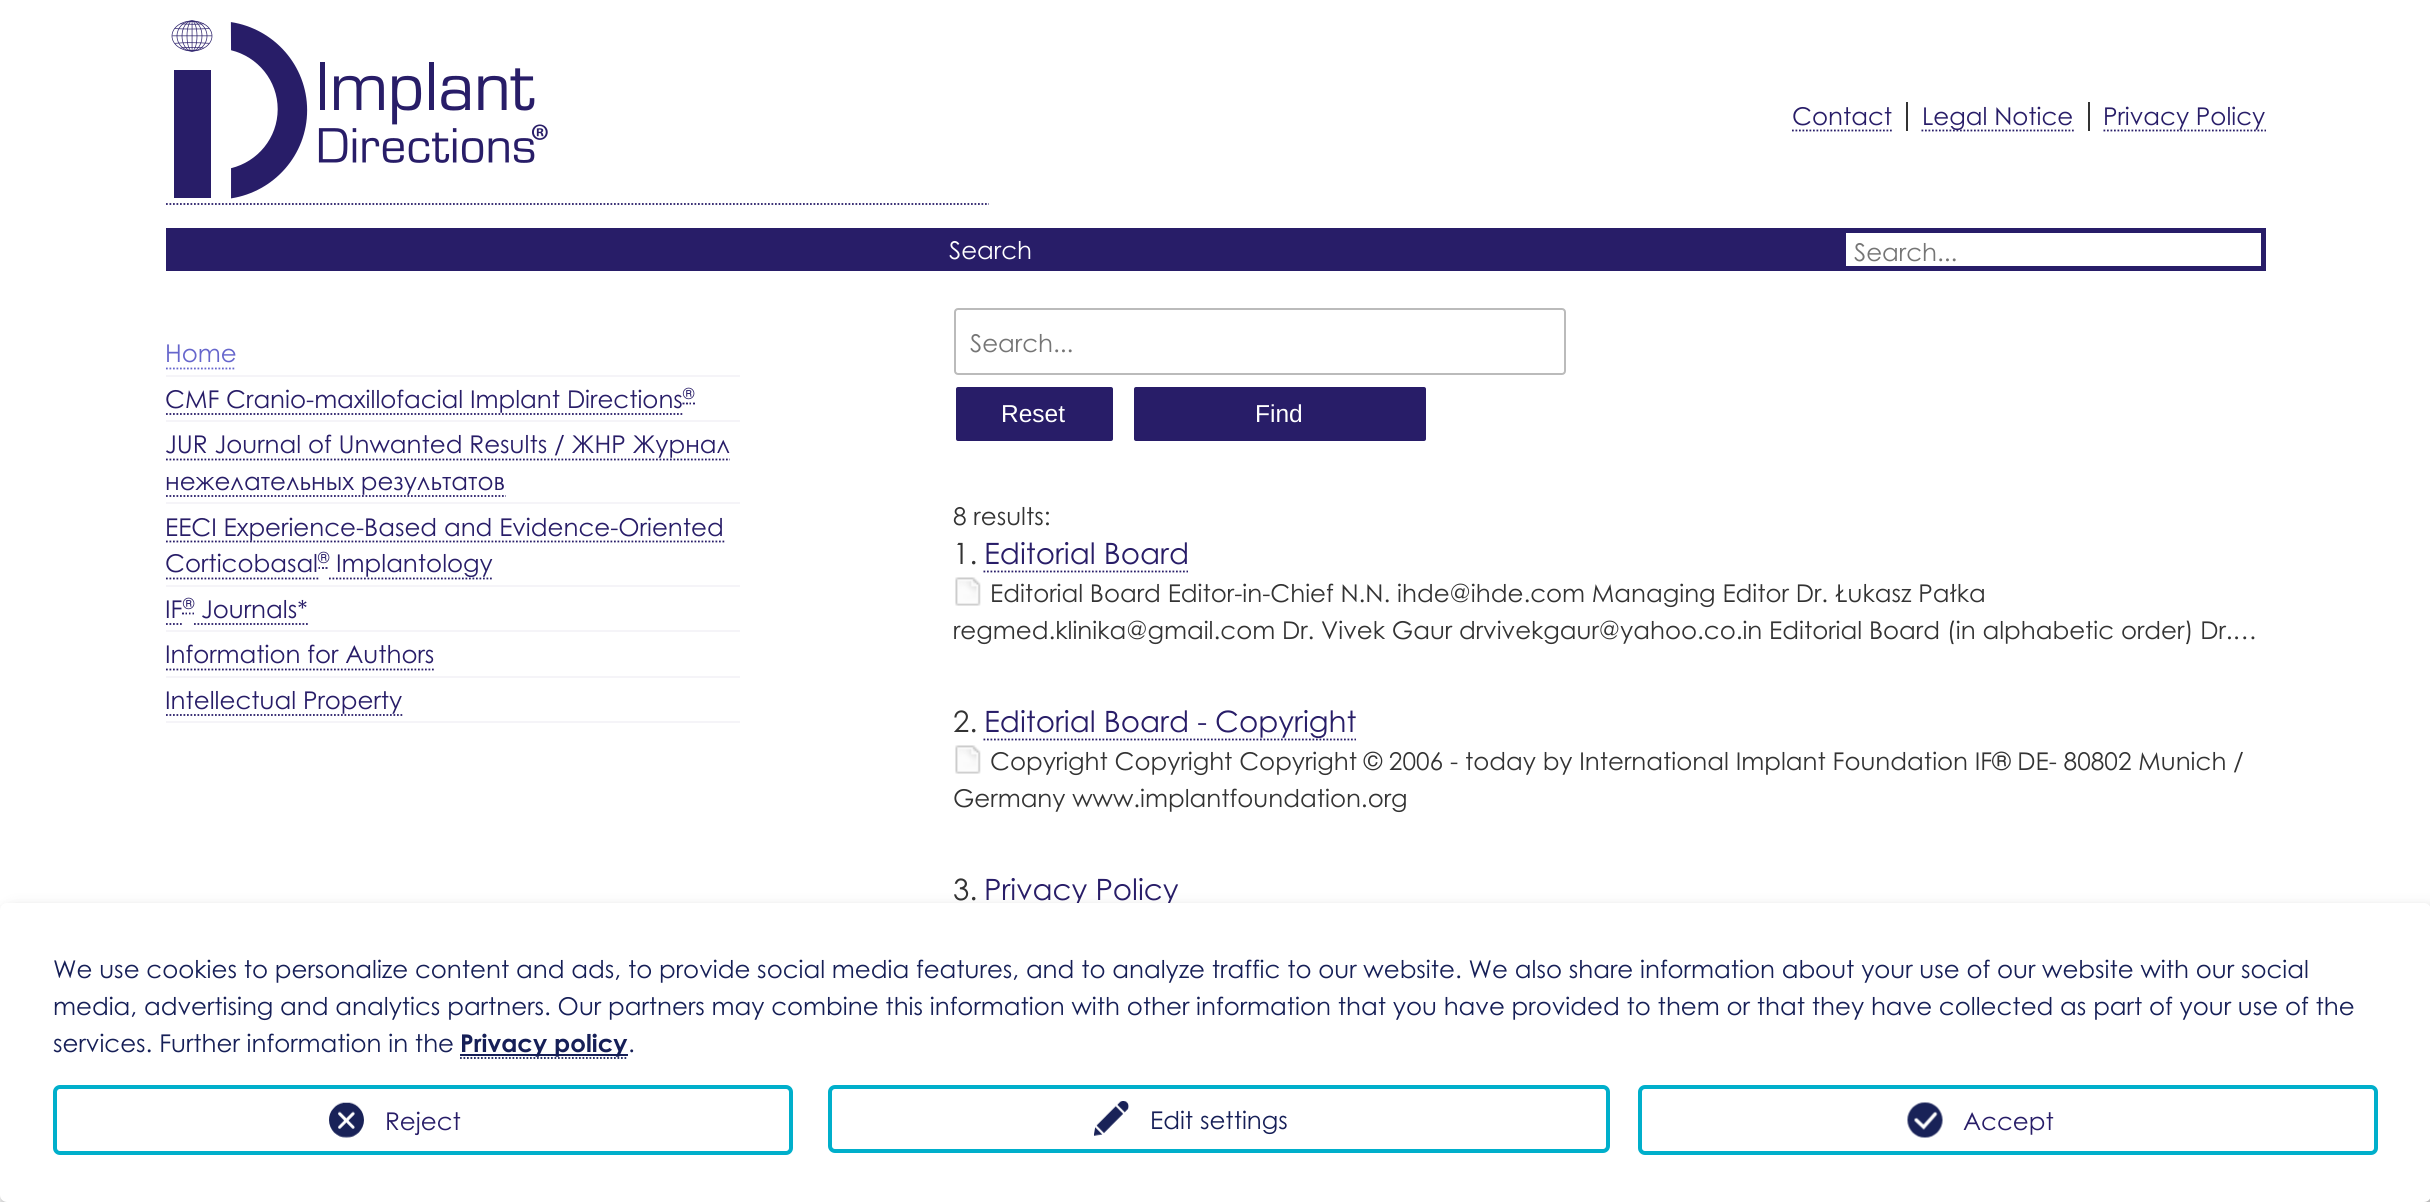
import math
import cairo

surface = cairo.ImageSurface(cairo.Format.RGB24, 2430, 1202)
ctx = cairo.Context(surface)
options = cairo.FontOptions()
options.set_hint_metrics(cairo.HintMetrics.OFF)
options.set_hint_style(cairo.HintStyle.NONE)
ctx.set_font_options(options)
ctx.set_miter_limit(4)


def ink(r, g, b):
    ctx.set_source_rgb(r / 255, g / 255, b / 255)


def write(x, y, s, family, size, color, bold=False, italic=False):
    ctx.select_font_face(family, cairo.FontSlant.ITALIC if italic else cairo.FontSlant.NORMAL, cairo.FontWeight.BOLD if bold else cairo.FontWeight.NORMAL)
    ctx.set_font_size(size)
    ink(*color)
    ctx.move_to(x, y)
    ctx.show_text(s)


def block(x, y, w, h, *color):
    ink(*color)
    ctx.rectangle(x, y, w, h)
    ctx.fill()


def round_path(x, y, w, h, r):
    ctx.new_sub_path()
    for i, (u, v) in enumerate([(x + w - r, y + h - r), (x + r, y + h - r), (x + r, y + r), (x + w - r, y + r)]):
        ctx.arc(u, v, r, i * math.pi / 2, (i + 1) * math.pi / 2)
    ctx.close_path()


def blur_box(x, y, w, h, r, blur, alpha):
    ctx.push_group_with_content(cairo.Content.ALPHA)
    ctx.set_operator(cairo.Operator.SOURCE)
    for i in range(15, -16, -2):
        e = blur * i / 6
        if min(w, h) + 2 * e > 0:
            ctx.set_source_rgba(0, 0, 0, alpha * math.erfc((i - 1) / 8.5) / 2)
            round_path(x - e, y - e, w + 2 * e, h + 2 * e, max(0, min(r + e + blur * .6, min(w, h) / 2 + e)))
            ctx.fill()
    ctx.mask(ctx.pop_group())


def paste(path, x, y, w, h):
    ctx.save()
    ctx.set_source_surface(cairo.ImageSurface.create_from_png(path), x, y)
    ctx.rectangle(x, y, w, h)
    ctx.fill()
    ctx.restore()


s1 = dict(family="Century Gothic", size=24.5, color=(40, 29, 104))
s2 = dict(family="Century Gothic", size=24.5, color=(255, 255, 255))
s3 = dict(family="Century Gothic", size=24.5, color=(117, 117, 117))
s4 = dict(family="Century Gothic", size=24.5, color=(102, 102, 204))
s5 = dict(family="Century Gothic", size=15, color=(40, 29, 104))
s6 = dict(family="Liberation Sans", size=24.5, color=(255, 255, 255))
s7 = dict(family="Century Gothic", size=24.5, color=(51, 51, 51))
s8 = dict(family="Century Gothic", size=29.4, color=(51, 51, 51))
s9 = dict(family="Century Gothic", size=29.4, color=(40, 29, 104))
s10 = dict(family="Century Gothic", size=24.5, color=(22, 31, 87))
s11 = dict(family="Century Gothic", size=24.5, color=(22, 31, 87), bold=True)

ink(255, 255, 255)
ctx.paint()
ctx.new_path()
ctx.move_to(166, 204)
ctx.line_to(989, 204)
ink(40, 29, 104)
ctx.set_line_width(1.8)
ctx.set_dash([1.75, 1.75])
ctx.stroke()
paste("pic1.png", 171, 20, 377, 179)
ctx.new_path()
ctx.move_to(1792, 130.5)
ctx.line_to(1892, 130.5)
ctx.stroke()
write(1792, 125, "Contact", **s1)
block(1906, 102, 2, 29, 51, 51, 51)
ctx.new_path()
ctx.move_to(1921.5, 130.5)
ctx.line_to(2074, 130.5)
ink(40, 29, 104)
ctx.stroke()
write(1922, 125, "Legal Notice", **s1)
block(2088, 102, 2, 29, 51, 51, 51)
ctx.new_path()
ctx.move_to(2103.5, 130.5)
ctx.line_to(2266, 130.5)
ink(40, 29, 104)
ctx.stroke()
write(2103, 125, "Privacy Policy", **s1)
block(166, 228, 2100, 43, 40, 29, 104)
write(949, 259, "Search", **s2)
block(1846, 233, 415, 33, 255, 255, 255)
write(1854, 261, "Search...", **s3)
block(166, 375, 574, 2, 245, 244, 248)
write(165, 362, "Home", **s4)
ctx.new_path()
ctx.move_to(166, 368.5)
ctx.line_to(236, 368.5)
ctx.stroke()
block(166, 420, 574, 2, 245, 244, 248)
ctx.new_path()
ctx.move_to(682.5, 403.5)
ctx.line_to(684.5, 403.5)
ctx.move_to(686, 403.5)
ctx.line_to(688, 403.5)
ctx.move_to(689.5, 403.5)
ctx.line_to(691, 403.5)
ctx.move_to(693, 403.5)
ctx.line_to(695, 403.5)
ink(40, 29, 104)
ctx.set_dash([])
ctx.stroke()
write(165, 408, "CMF Cranio-maxillofacial Implant Directions", **s1)
ctx.new_path()
ctx.move_to(166, 414)
ctx.line_to(682.5, 414)
ctx.set_dash([1.75, 1.75])
ctx.stroke()
write(683, 399, "®", **s5)
block(166, 502, 574, 2, 245, 244, 248)
write(165, 453, "JUR Journal of Unwanted Results / ЖHP Журнал", **s1)
ctx.new_path()
ctx.move_to(166, 459.5)
ctx.line_to(730, 459.5)
ctx.stroke()
write(165, 490, "нежелательных результатов", **s1)
ctx.new_path()
ctx.move_to(166, 496)
ctx.line_to(506, 496)
ctx.stroke()
block(166, 585, 574, 2, 245, 244, 248)
ctx.new_path()
ctx.move_to(166, 541.5)
ctx.line_to(724.5, 541.5)
ink(40, 29, 104)
ctx.stroke()
write(165, 536, "EECI Experience-Based and Evidence-Oriented", **s1)
write(165, 572, "Corticobasal", **s1)
ctx.new_path()
ctx.move_to(166, 578.5)
ctx.line_to(318.5, 578.5)
ctx.stroke()
ctx.new_path()
ctx.move_to(318.5, 568)
ctx.line_to(320, 568)
ctx.move_to(322, 568)
ctx.line_to(324, 568)
ctx.move_to(325.5, 568)
ctx.line_to(327.5, 568)
ctx.set_dash([])
ctx.stroke()
write(318, 563, "®", **s5)
ctx.new_path()
ctx.move_to(329, 578.5)
ctx.line_to(493.5, 578.5)
ctx.set_dash([1.75, 1.75])
ctx.stroke()
write(336, 572, "Implantology", **s1)
block(166, 630, 574, 2, 245, 244, 248)
write(165, 618, "IF", **s1)
ctx.new_path()
ctx.move_to(166, 624)
ctx.line_to(182, 624)
ctx.stroke()
ctx.new_path()
ctx.move_to(182, 613.5)
ctx.line_to(184, 613.5)
ctx.move_to(185.5, 613.5)
ctx.line_to(187, 613.5)
ctx.move_to(189, 613.5)
ctx.line_to(190.5, 613.5)
ctx.move_to(192.5, 613.5)
ctx.line_to(194, 613.5)
ctx.set_dash([])
ctx.stroke()
write(183, 609, "®", **s5)
write(201, 618, "Journals*", **s1)
ctx.new_path()
ctx.move_to(194, 624)
ctx.line_to(308, 624)
ctx.set_dash([1.75, 1.75])
ctx.stroke()
block(166, 676, 574, 2, 245, 244, 248)
write(165, 663, "Information for Authors", **s1)
ctx.new_path()
ctx.move_to(166, 669.5)
ctx.line_to(434, 669.5)
ctx.stroke()
block(166, 721, 574, 2, 245, 244, 248)
write(165, 709, "Intellectual Property", **s1)
ctx.new_path()
ctx.move_to(166, 715)
ctx.line_to(402.5, 715)
ctx.stroke()
round_path(955, 309, 610, 65, 3)
ink(187, 187, 187)
ctx.set_line_width(2)
ctx.set_dash([])
ctx.stroke()
write(970, 352, "Search...", **s3)
ink(40, 29, 104)
round_path(955, 386, 159, 56, 3)
ctx.fill_preserve()
ink(255, 255, 255)
ctx.stroke()
write(1001, 422, "Reset", **s6)
ink(40, 29, 104)
round_path(1133, 386, 294, 56, 3)
ctx.fill_preserve()
ink(255, 255, 255)
ctx.stroke()
write(1255, 422, "Find", **s6)
write(953, 525, "8 results:", **s7)
write(953, 564, "1.", **s8)
write(984, 564, "Editorial Board", **s9)
ctx.new_path()
ctx.move_to(983.5, 571.5)
ctx.line_to(1188, 571.5)
ctx.set_line_width(1.8)
ctx.set_dash([1.75, 1.75])
ctx.stroke()
paste("pic2.png", 955, 577, 26, 29)
write(990, 602, "Editorial Board Editor-in-Chief N.N. ihde@ihde.com Managing Editor Dr. Łukasz Pałka", **s7)
write(953, 639, "regmed.klinika@gmail.com Dr. Vivek Gaur drvivekgaur@yahoo.co.in Editorial Board (in alphabetic order) Dr.…", **s7)
write(953, 732, "2.", **s8)
ctx.new_path()
ctx.move_to(983.5, 739.5)
ctx.line_to(1356, 739.5)
ink(40, 29, 104)
ctx.stroke()
write(984, 732, "Editorial Board - Copyright", **s9)
paste("pic2.png", 955, 745, 26, 29)
write(990, 770, "Copyright Copyright Copyright © 2006 - today by International Implant Foundation IF® DE- 80802 Munich /", **s7)
write(953, 807, "Germany www.implantfoundation.org", **s7)
write(953, 900, "3.", **s8)
write(984, 900, "Privacy Policy", **s9)
ink(0, 0, 0)
blur_box(9, 912, 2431, 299, 7, 9, 0.19)
blur_box(0, 910, 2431, 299, 7, 5, 0.2)
ink(255, 255, 255)
round_path(0, 903, 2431, 299, 7)
ctx.fill()
write(53, 978, "We use cookies to personalize content and ads, to provide social media features, and to analyze traffic to our website. We also share information about your use of our website with our social", **s10)
write(53, 1015, "media, advertising and analytics partners. Our partners may combine this information with other information that you have provided to them or that they have collected as part of your use of the", **s10)
write(53, 1052, "services. Further information in the", **s10)
block(460, 1054, 168, 2, 22, 31, 87)
write(460, 1052, "Privacy policy", **s11)
write(628, 1052, ".", **s10)
ctx.new_path()
ctx.move_to(460, 1058)
ctx.line_to(628, 1058)
ctx.stroke()
round_path(830, 1087, 778, 64, 5)
ink(0, 175, 203)
ctx.set_line_width(4)
ctx.set_dash([])
ctx.stroke()
paste("pic3.png", 1094, 1101, 35, 35)
write(1150, 1129, "Edit settings", **s10)
round_path(55, 1087, 736, 66, 5)
ink(0, 175, 203)
ctx.stroke()
paste("pic4.png", 329, 1102, 35, 36)
write(385, 1130, "Reject", **s1)
round_path(1640, 1087, 736, 66, 5)
ink(0, 175, 203)
ctx.stroke()
paste("pic5.png", 1907, 1102, 36, 36)
write(1963, 1130, "Accept", **s1)
surface.write_to_png("screenshot.png")
